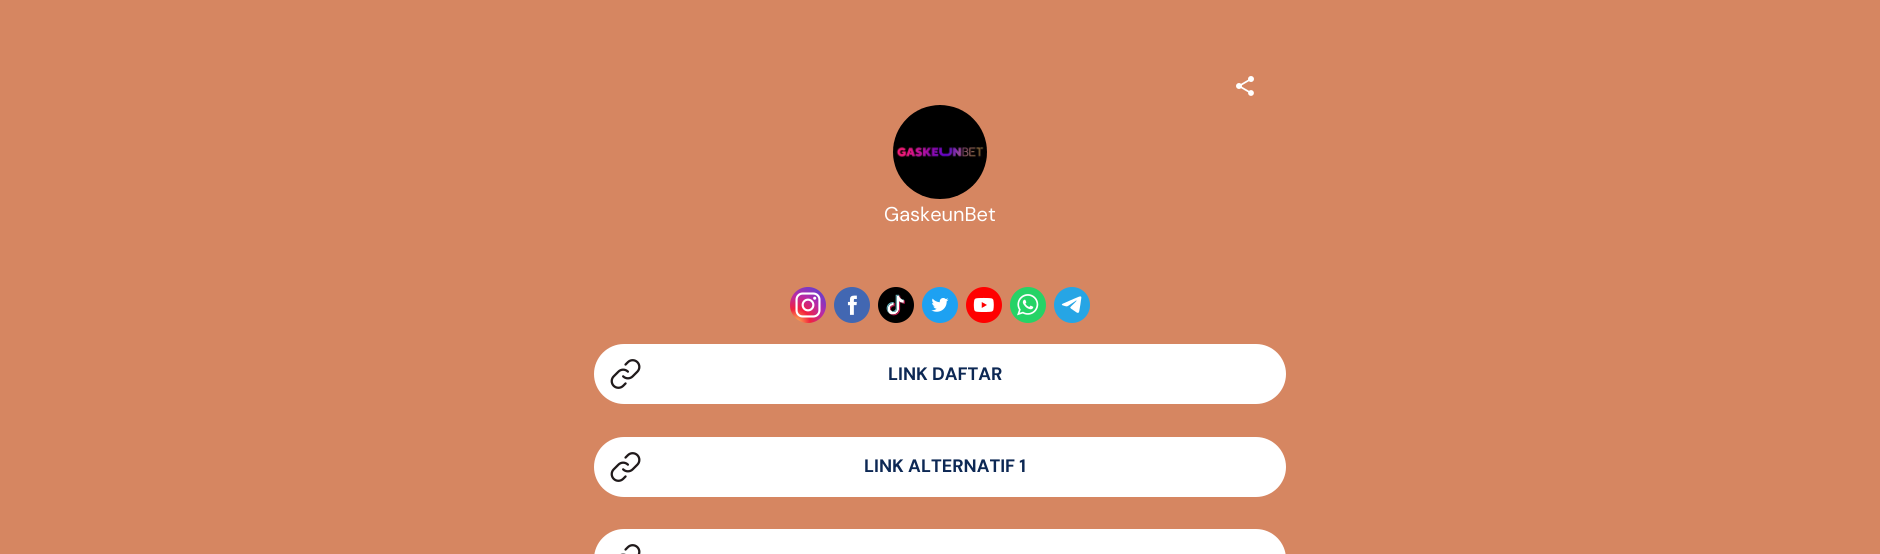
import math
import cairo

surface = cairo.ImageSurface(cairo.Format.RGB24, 1880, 554)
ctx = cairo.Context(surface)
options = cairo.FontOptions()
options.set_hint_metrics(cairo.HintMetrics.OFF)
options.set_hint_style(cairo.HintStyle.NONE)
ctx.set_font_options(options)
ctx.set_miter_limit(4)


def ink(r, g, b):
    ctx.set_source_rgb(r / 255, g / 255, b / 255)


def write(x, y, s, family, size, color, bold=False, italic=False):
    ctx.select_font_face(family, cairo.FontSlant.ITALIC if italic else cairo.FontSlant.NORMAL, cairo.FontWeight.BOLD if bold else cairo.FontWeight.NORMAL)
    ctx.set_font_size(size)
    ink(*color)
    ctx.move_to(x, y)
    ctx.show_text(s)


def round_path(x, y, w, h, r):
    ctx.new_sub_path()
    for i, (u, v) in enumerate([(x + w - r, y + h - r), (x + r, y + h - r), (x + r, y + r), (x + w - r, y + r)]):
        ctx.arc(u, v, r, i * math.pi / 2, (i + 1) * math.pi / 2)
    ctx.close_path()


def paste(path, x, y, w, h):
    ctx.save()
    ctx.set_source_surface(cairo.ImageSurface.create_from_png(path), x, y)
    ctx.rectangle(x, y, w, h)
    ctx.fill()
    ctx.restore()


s1 = dict(family="DM Sans", size=20, color=(255, 255, 255))
s2 = dict(family="DM Sans", size=18, color=(13, 40, 84), bold=True)

ink(214, 134, 97)
ctx.paint()
paste("pic1.png", 1236, 76, 18, 20)
paste("pic2.png", 893, 105, 94, 94)
write(884, 221, "GaskeunBet", **s1)
paste("pic3.png", 790, 287, 36, 36)
paste("pic4.png", 834, 287, 36, 36)
paste("pic5.png", 878, 287, 36, 36)
paste("pic6.png", 922, 287, 36, 36)
paste("pic7.png", 966, 287, 36, 36)
paste("pic8.png", 1010, 287, 36, 36)
paste("pic9.png", 1054, 287, 36, 36)
round_path(594, 344, 692, 60, 30)
ctx.fill()
paste("pic10.png", 610, 359, 31, 30)
write(888, 380, "LINK DAFTAR", **s2)
ink(255, 255, 255)
round_path(594, 437, 692, 60, 30)
ctx.fill()
paste("pic10.png", 610, 452, 31, 30)
write(864, 472, "LINK ALTERNATIF 1", **s2)
ink(255, 255, 255)
round_path(594, 529, 692, 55, 30)
ctx.fill()
paste("pic11.png", 620, 544, 21, 10)
surface.write_to_png("screenshot.png")
